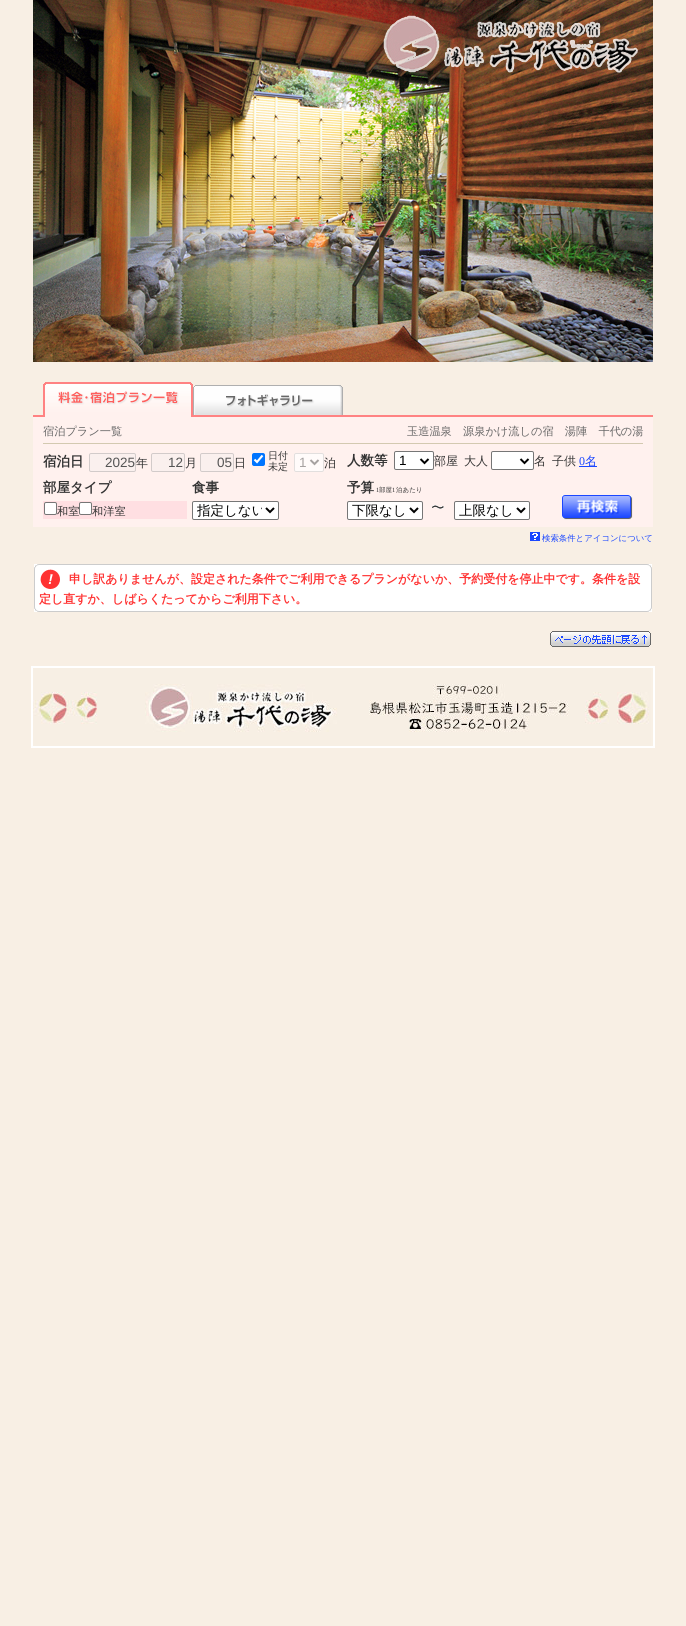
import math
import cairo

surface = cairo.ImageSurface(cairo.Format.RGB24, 686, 1626)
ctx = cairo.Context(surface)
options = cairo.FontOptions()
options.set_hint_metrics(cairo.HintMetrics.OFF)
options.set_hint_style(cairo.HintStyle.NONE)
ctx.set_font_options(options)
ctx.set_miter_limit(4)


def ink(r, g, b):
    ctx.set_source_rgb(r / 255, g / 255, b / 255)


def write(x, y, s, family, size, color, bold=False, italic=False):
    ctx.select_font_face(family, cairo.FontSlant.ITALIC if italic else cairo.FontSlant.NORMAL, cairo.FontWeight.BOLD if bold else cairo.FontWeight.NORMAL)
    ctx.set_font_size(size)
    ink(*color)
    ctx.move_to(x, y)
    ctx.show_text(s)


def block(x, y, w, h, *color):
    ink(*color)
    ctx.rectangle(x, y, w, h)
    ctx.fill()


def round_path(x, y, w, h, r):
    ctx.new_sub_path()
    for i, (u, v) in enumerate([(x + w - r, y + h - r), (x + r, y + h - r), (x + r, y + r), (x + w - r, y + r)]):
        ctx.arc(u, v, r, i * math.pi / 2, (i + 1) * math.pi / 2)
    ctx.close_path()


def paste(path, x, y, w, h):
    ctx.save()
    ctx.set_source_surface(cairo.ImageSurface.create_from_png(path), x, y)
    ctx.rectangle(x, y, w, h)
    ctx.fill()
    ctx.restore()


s1 = dict(family="WenQuanYi Zen Hei Medium", size=11.2, color=(102, 102, 102))
s2 = dict(family="WenQuanYi Zen Hei", size=13.5, color=(51, 51, 51), bold=True)
s3 = dict(family="Liberation Sans", size=13.5, color=(84, 84, 84))
s4 = dict(family="WenQuanYi Zen Hei Medium", size=12, color=(51, 51, 51))
s5 = dict(family="WenQuanYi Zen Hei Medium", size=10, color=(51, 51, 51))
s6 = dict(family="Liberation Sans", size=13.5, color=(166, 162, 161))
s7 = dict(family="Liberation Sans", size=13.5, color=(0, 0, 0))
s8 = dict(family="Liberation Serif", size=12, color=(27, 71, 255))
s9 = dict(family="WenQuanYi Zen Hei Medium", size=12, color=(27, 71, 255))
s10 = dict(family="WenQuanYi Zen Hei Medium", size=11.2, color=(51, 51, 51))
s11 = dict(family="WenQuanYi Zen Hei Medium", size=13.5, color=(0, 0, 0))
s12 = dict(family="Liberation Serif", size=6.5, color=(51, 51, 51))
s13 = dict(family="WenQuanYi Zen Hei Medium", size=6.5, color=(51, 51, 51))
s14 = dict(family="WenQuanYi Zen Hei Medium", size=8.4, color=(27, 71, 255))
s15 = dict(family="WenQuanYi Zen Hei", size=12, color=(255, 51, 51), bold=True)

ink(248, 239, 228)
ctx.paint()
paste("pic1.png", 33, 0, 620, 362)
block(33, 415, 620, 2, 255, 130, 130)
paste("pic2.png", 43, 382, 150, 35)
paste("pic3.png", 193, 385, 150, 32)
block(33, 417, 620, 110, 255, 241, 238)
block(43, 443, 600, 1, 211, 201, 176)
write(43, 435, "宿泊プラン一覧", **s1)
write(407, 435, "玉造温泉　源泉かけ流しの宿　湯陣　千代の湯", **s1)
write(43, 466, "宿泊日", **s2)
ink(250, 240, 238)
round_path(89.5, 453.5, 46, 18, 1.5)
ctx.fill_preserve()
ink(210, 203, 202)
ctx.set_line_width(1)
ctx.stroke()
write(105, 467, "2025", **s3)
write(136, 467, "年", **s4)
ink(250, 240, 238)
round_path(151.5, 453.5, 33, 18, 1.5)
ctx.fill_preserve()
ink(210, 203, 202)
ctx.stroke()
write(168, 467, "12", **s3)
write(185, 467, "月", **s4)
ink(250, 240, 238)
round_path(200.5, 453.5, 33, 18, 1.5)
ctx.fill_preserve()
ink(210, 203, 202)
ctx.stroke()
write(217, 467, "05", **s3)
write(234, 467, "日", **s4)
ink(0, 117, 255)
round_path(252, 453, 13, 13, 2)
ctx.fill()
ctx.new_path()
ctx.move_to(254.5, 459.5)
ctx.line_to(257, 462)
ctx.line_to(262.5, 455.5)
ink(255, 255, 255)
ctx.set_line_width(2.1)
ctx.stroke()
write(268, 459, "日付", **s5)
write(268, 470, "未定", **s5)
write(324, 467, "泊", **s4)
ctx.set_source_rgba(1, 1, 1, 0.7)
round_path(294, 453, 30, 19, 2)
ctx.fill()
round_path(294.5, 453.5, 29, 18, 1.5)
ctx.set_source_rgba(0.463, 0.463, 0.463, 0.21)
ctx.set_line_width(1)
ctx.stroke()
ctx.new_path()
ctx.move_to(310.5, 460)
ctx.line_to(314.5, 464)
ctx.line_to(318.5, 460)
ink(166, 162, 161)
ctx.set_line_width(2)
ctx.stroke()
write(299, 467, "1", **s6)
write(347, 465, "人数等", **s2)
ink(255, 255, 255)
round_path(394.5, 451.5, 39, 18, 1.5)
ctx.fill_preserve()
ink(118, 118, 118)
ctx.set_line_width(1)
ctx.stroke()
ctx.new_path()
ctx.move_to(420.5, 459)
ctx.line_to(424.5, 463)
ctx.line_to(428.5, 459)
ink(0, 0, 0)
ctx.set_line_width(2)
ctx.stroke()
write(399, 465, "1", **s7)
write(434, 465, "部屋", **s4)
write(464, 465, "大人", **s4)
ink(255, 255, 255)
round_path(491.5, 451.5, 42, 18, 1.5)
ctx.fill_preserve()
ink(118, 118, 118)
ctx.set_line_width(1)
ctx.stroke()
ctx.new_path()
ctx.move_to(520.5, 459)
ctx.line_to(524.5, 463)
ctx.line_to(528.5, 459)
ink(0, 0, 0)
ctx.set_line_width(2)
ctx.stroke()
write(534, 465, "名", **s4)
write(552, 465, "子供", **s4)
write(579, 465, "0", **s8)
block(579, 466, 18, 1, 27, 71, 255)
write(585, 465, "名", **s9)
write(43, 492, "部屋タイプ", **s2)
block(43, 501, 144, 18, 255, 223, 226)
ink(255, 255, 255)
round_path(44.5, 502.5, 12, 12, 1.5)
ctx.fill_preserve()
ink(118, 118, 118)
ctx.set_line_width(1)
ctx.stroke()
write(57, 515, "和室", **s10)
ink(255, 255, 255)
round_path(79.5, 502.5, 12, 12, 1.5)
ctx.fill_preserve()
ink(118, 118, 118)
ctx.stroke()
write(92, 515, "和洋室", **s10)
write(192, 492, "食事", **s2)
ink(255, 255, 255)
round_path(192.5, 501.5, 86, 18, 1.5)
ctx.fill_preserve()
ink(118, 118, 118)
ctx.stroke()
ctx.new_path()
ctx.move_to(266, 508)
ctx.line_to(270, 512)
ctx.line_to(274, 508)
ink(0, 0, 0)
ctx.set_line_width(2)
ctx.stroke()
ctx.save()
ctx.rectangle(197, 502, 65, 17)
ctx.clip()
write(197, 515, "指定しない", **s11)
ctx.restore()
write(347, 492, "予算", **s2)
write(376, 492, "1", **s12)
write(379, 492, "部屋", **s13)
write(392, 492, "1", **s12)
write(396, 492, "泊あたり", **s13)
ink(255, 255, 255)
round_path(347.5, 501.5, 75, 18, 1.5)
ctx.fill_preserve()
ink(118, 118, 118)
ctx.set_line_width(1)
ctx.stroke()
ctx.new_path()
ctx.move_to(410, 508)
ctx.line_to(414, 512)
ctx.line_to(418, 508)
ink(0, 0, 0)
ctx.set_line_width(2)
ctx.stroke()
write(352, 515, "下限なし", **s11)
paste("pic4.png", 432, 505, 12, 4)
ink(255, 255, 255)
round_path(454.5, 501.5, 75, 18, 1.5)
ctx.fill_preserve()
ink(118, 118, 118)
ctx.set_line_width(1)
ctx.stroke()
ctx.new_path()
ctx.move_to(517, 508)
ctx.line_to(521, 512)
ctx.line_to(525, 508)
ink(0, 0, 0)
ctx.set_line_width(2)
ctx.stroke()
write(459, 515, "上限なし", **s11)
paste("pic5.png", 562, 495, 71, 25)
paste("pic6.png", 530, 532, 10, 9)
write(542, 541, "検索条件とアイコンについて", **s14)
block(34, 564, 618, 48, 255, 255, 255)
paste("pic7.png", 34, 564, 5, 5)
block(39, 564, 608, 1, 204, 204, 204)
paste("pic8.png", 647, 564, 5, 5)
block(34, 569, 1, 38, 204, 204, 204)
paste("pic9.png", 40, 569, 20, 20)
write(69, 583, "申し訳ありませんが、設定された条件でご利用できるプランがないか、予約受付を停止中です。条件を設", **s15)
write(39, 603, "定し直すか、しばらくたってからご利用下さい。", **s15)
block(651, 569, 1, 38, 204, 204, 204)
paste("pic10.png", 34, 607, 5, 5)
block(39, 611, 608, 1, 204, 204, 204)
paste("pic11.png", 647, 607, 5, 5)
paste("pic12.png", 550, 631, 101, 16)
block(31, 666, 624, 82, 255, 255, 255)
paste("pic13.png", 33, 668, 620, 78)
surface.write_to_png("screenshot.png")
